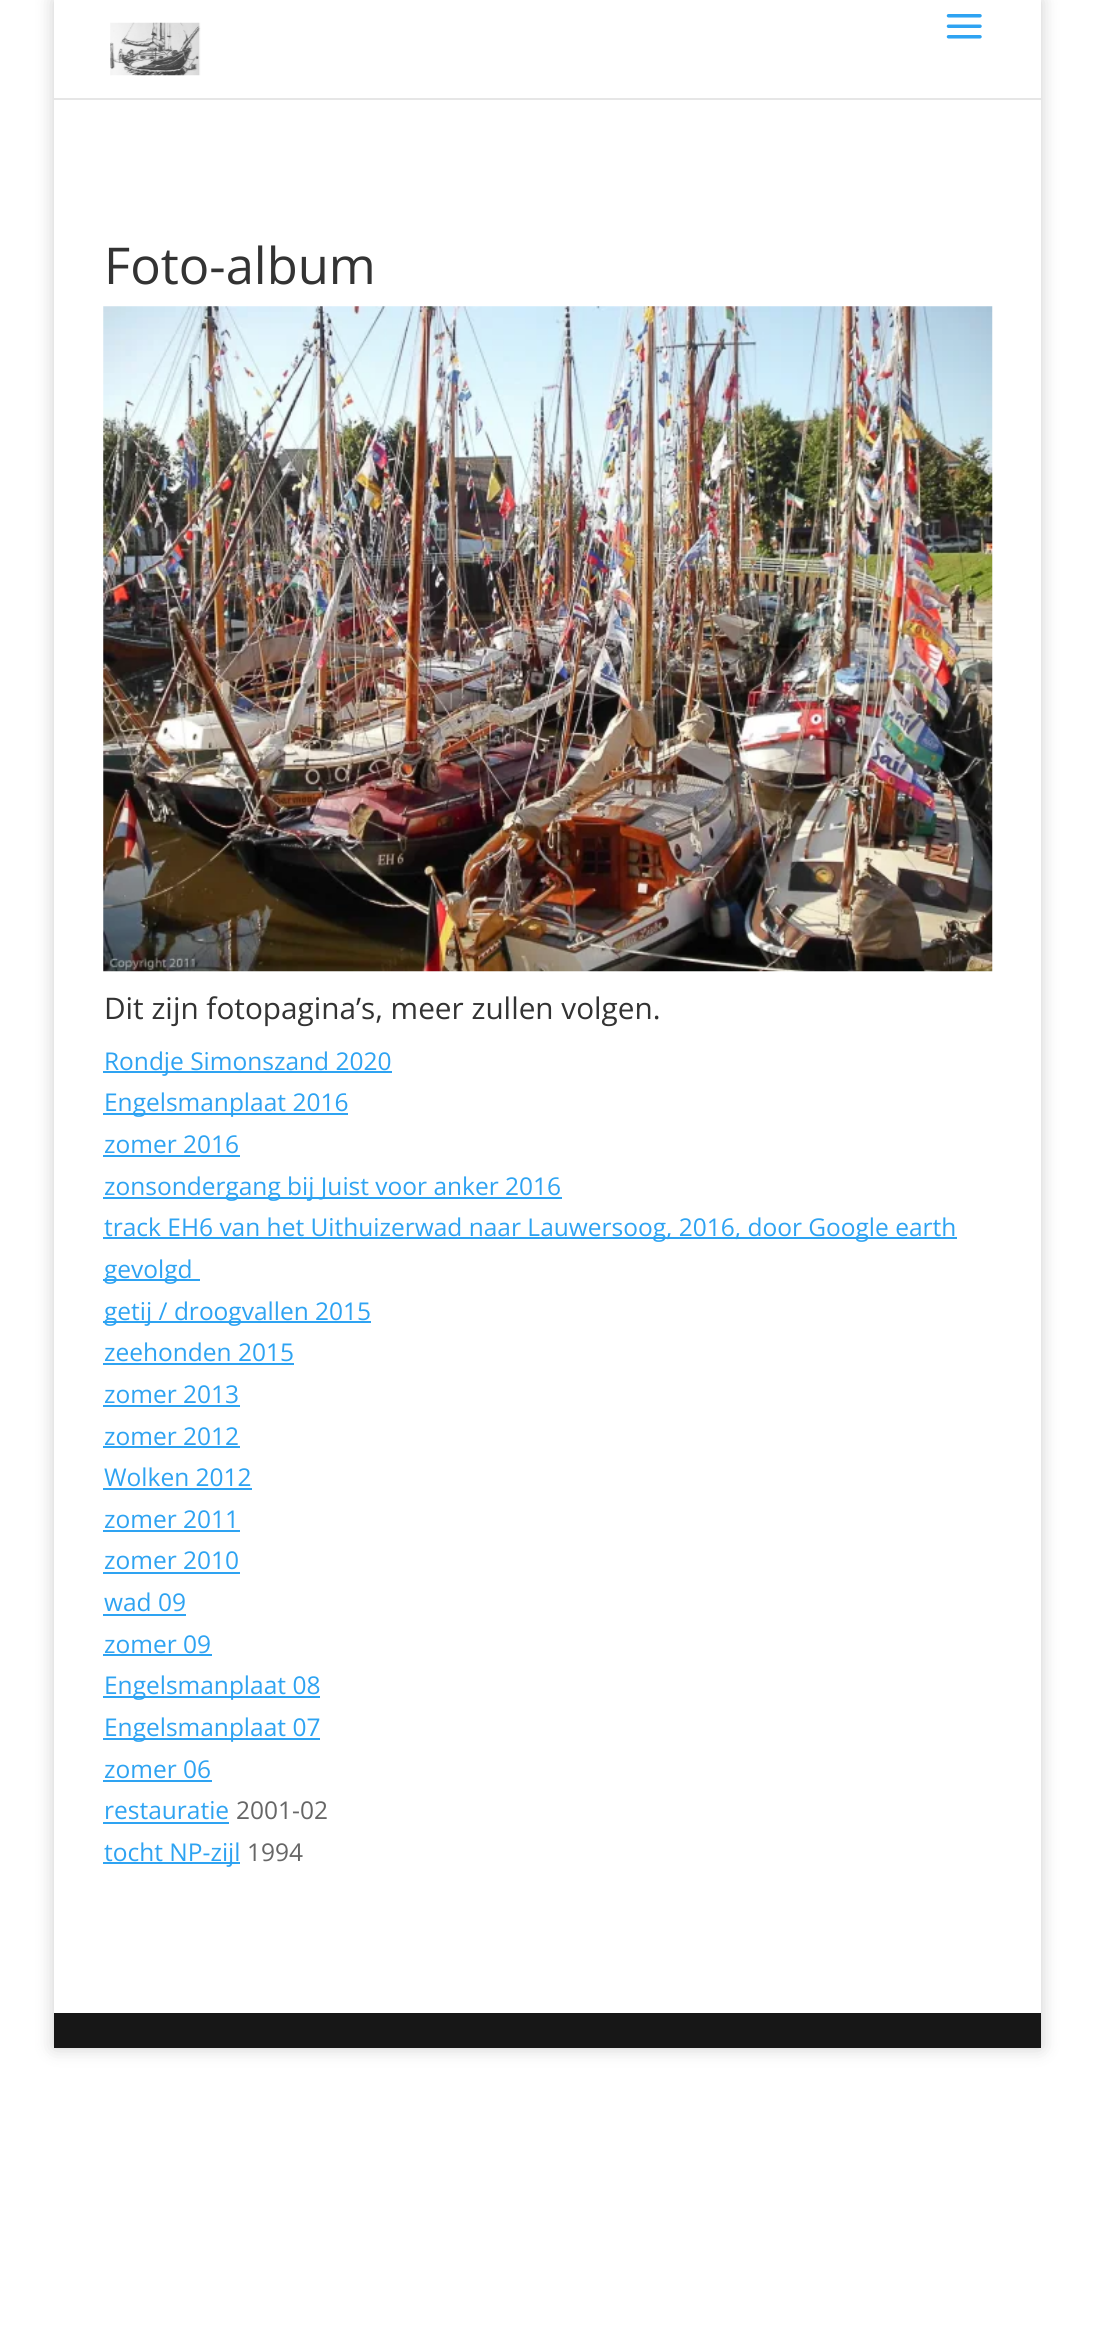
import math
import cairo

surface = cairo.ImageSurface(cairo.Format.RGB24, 1095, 2331)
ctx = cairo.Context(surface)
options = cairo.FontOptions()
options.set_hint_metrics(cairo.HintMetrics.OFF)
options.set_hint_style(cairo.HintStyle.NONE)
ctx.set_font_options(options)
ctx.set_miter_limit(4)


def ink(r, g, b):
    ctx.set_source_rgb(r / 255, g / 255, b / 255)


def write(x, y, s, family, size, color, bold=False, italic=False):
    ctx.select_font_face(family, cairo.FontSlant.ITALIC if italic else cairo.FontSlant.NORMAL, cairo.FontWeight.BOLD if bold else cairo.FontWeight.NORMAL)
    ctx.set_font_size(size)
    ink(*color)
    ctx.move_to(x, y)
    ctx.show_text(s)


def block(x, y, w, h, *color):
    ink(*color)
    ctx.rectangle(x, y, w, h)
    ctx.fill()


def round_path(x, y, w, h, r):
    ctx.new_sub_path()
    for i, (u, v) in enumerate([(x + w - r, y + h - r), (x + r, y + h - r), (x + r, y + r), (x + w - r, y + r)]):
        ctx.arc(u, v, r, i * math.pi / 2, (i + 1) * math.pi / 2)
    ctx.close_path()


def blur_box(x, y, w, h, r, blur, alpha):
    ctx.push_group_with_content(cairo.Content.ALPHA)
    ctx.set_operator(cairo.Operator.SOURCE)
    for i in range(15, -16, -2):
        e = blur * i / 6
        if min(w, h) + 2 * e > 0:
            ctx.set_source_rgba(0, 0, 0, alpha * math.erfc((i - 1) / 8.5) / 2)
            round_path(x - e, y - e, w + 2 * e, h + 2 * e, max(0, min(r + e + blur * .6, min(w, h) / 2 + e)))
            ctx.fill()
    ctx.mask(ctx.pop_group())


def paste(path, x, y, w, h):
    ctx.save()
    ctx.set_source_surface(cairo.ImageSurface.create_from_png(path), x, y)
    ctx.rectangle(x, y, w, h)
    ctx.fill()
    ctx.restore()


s1 = dict(family="Open Sans", size=50.75, color=(51, 51, 51))
s2 = dict(family="Open Sans", size=29.75, color=(51, 51, 51))
s3 = dict(family="Open Sans", size=24.5, color=(46, 163, 242))
s4 = dict(family="Open Sans", size=24.5, color=(102, 102, 102))

ink(255, 255, 255)
ctx.paint()
ink(0, 0, 0)
blur_box(54, 0, 987, 2048, 0, 9, 0.2)
ink(230, 230, 230)
ctx.new_path()
ctx.move_to(54, 2)
ctx.line_to(54, 100)
ctx.line_to(1041, 100)
ctx.line_to(1041, 98)
ctx.line_to(54, 98)
ctx.close_path()
ctx.fill()
block(54, 0, 987, 98, 255, 255, 255)
paste("pic1.png", 110, 22, 91, 54)
paste("pic2.png", 946, 14, 36, 25)
block(54, 100, 987, 1913, 255, 255, 255)
write(104, 284, "Foto-album", **s1)
paste("pic3.png", 103, 306, 890, 666)
write(104, 1019, "Dit zijn fotopagina’s, meer zullen volgen.", **s2)
block(103, 1071, 289, 2, 46, 163, 242)
write(104, 1070, "Rondje Simonszand 2020", **s3)
block(103, 1113, 245, 2, 46, 163, 242)
write(104, 1111, "Engelsmanplaat 2016", **s3)
write(104, 1153, "zomer 2016", **s3)
block(103, 1155, 137, 2, 46, 163, 242)
block(103, 1197, 459, 2, 46, 163, 242)
write(104, 1195, "zonsondergang bij Juist voor anker 2016", **s3)
block(103, 1237, 854, 2, 46, 163, 242)
write(104, 1236, "track EH6 van het Uithuizerwad naar Lauwersoog, 2016, door Google earth", **s3)
block(103, 1279, 97, 2, 46, 163, 242)
write(104, 1278, "gevolgd", **s3)
block(103, 1321, 268, 2, 46, 163, 242)
write(104, 1320, "getij / droogvallen 2015", **s3)
write(104, 1361, "zeehonden 2015", **s3)
block(103, 1363, 191, 2, 46, 163, 242)
write(104, 1403, "zomer 2013", **s3)
block(103, 1405, 137, 2, 46, 163, 242)
write(104, 1445, "zomer 2012", **s3)
block(103, 1446, 137, 2, 46, 163, 242)
write(104, 1486, "Wolken 2012", **s3)
block(103, 1488, 149, 2, 46, 163, 242)
write(104, 1528, "zomer 2011", **s3)
block(103, 1530, 137, 2, 46, 163, 242)
write(104, 1569, "zomer 2010", **s3)
block(103, 1572, 137, 2, 46, 163, 242)
write(104, 1611, "wad 09", **s3)
block(103, 1614, 83, 2, 46, 163, 242)
write(104, 1653, "zomer 09", **s3)
block(103, 1654, 109, 2, 46, 163, 242)
block(103, 1696, 217, 2, 46, 163, 242)
write(104, 1694, "Engelsmanplaat 08", **s3)
block(103, 1738, 217, 2, 46, 163, 242)
write(104, 1736, "Engelsmanplaat 07", **s3)
write(104, 1778, "zomer 06", **s3)
block(103, 1780, 109, 2, 46, 163, 242)
write(104, 1819, "restauratie", **s3)
block(103, 1822, 126, 2, 46, 163, 242)
write(236, 1819, "2001-02", **s4)
block(103, 1862, 137, 2, 46, 163, 242)
write(104, 1861, "tocht NP-zijl", **s3)
write(247, 1861, "1994", **s4)
block(54, 2013, 987, 35, 23, 23, 23)
surface.write_to_png("screenshot.png")
